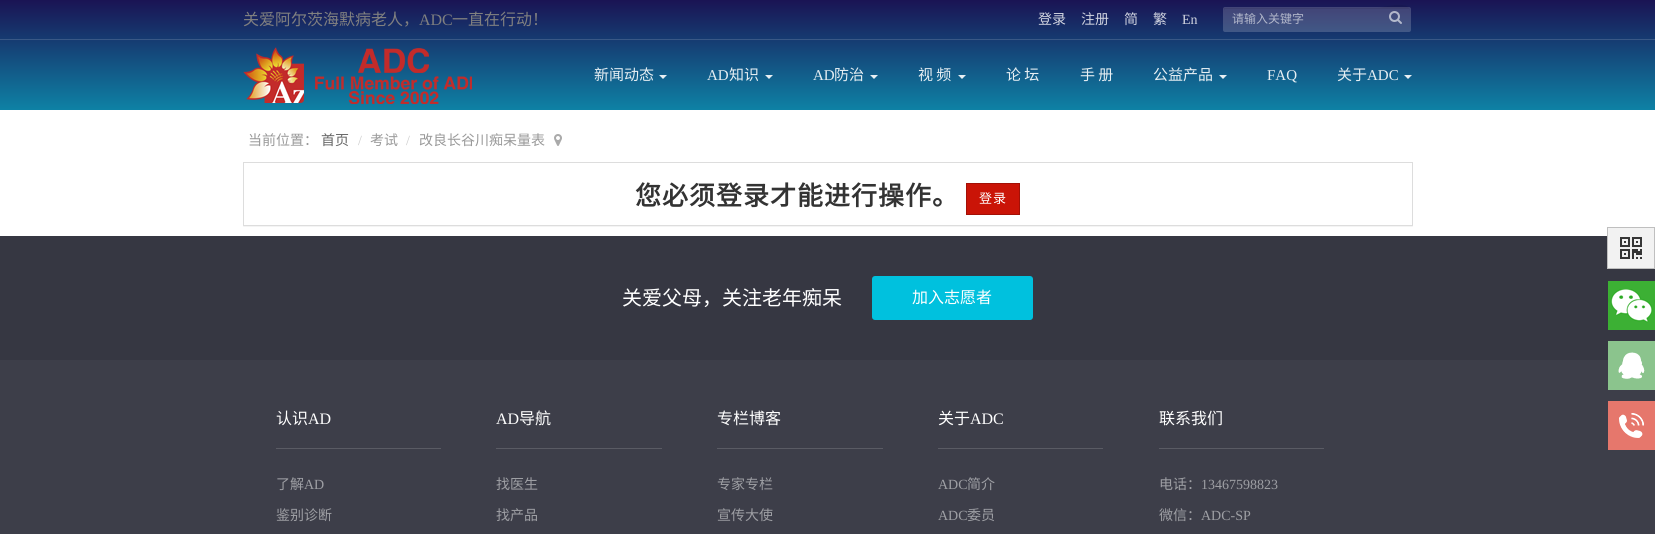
import math
import cairo

surface = cairo.ImageSurface(cairo.Format.RGB24, 1655, 534)
ctx = cairo.Context(surface)
options = cairo.FontOptions()
options.set_hint_metrics(cairo.HintMetrics.OFF)
options.set_hint_style(cairo.HintStyle.NONE)
ctx.set_font_options(options)
ctx.set_miter_limit(4)


def ink(r, g, b):
    ctx.set_source_rgb(r / 255, g / 255, b / 255)


def write(x, y, s, family, size, color, bold=False, italic=False):
    ctx.select_font_face(family, cairo.FontSlant.ITALIC if italic else cairo.FontSlant.NORMAL, cairo.FontWeight.BOLD if bold else cairo.FontWeight.NORMAL)
    ctx.set_font_size(size)
    ink(*color)
    ctx.move_to(x, y)
    ctx.show_text(s)


def write_spaced(x, y, s, letter, word):
    ctx.move_to(x, y)
    for ch in s:
        ctx.show_text(ch)
        ctx.rel_move_to(letter + word * (ch == ' '), 0)


def block(x, y, w, h, *color):
    ink(*color)
    ctx.rectangle(x, y, w, h)
    ctx.fill()


def round_path(x, y, w, h, r):
    ctx.new_sub_path()
    for i, (u, v) in enumerate([(x + w - r, y + h - r), (x + r, y + h - r), (x + r, y + r), (x + w - r, y + r)]):
        ctx.arc(u, v, r, i * math.pi / 2, (i + 1) * math.pi / 2)
    ctx.close_path()


def blur_box(x, y, w, h, r, blur, alpha):
    ctx.push_group_with_content(cairo.Content.ALPHA)
    ctx.set_operator(cairo.Operator.SOURCE)
    for i in range(15, -16, -2):
        e = blur * i / 6
        if min(w, h) + 2 * e > 0:
            ctx.set_source_rgba(0, 0, 0, alpha * math.erfc((i - 1) / 8.5) / 2)
            round_path(x - e, y - e, w + 2 * e, h + 2 * e, max(0, min(r + e + blur * .6, min(w, h) / 2 + e)))
            ctx.fill()
    ctx.mask(ctx.pop_group())


def paste(path, x, y, w, h):
    ctx.save()
    ctx.set_source_surface(cairo.ImageSurface.create_from_png(path), x, y)
    ctx.rectangle(x, y, w, h)
    ctx.fill()
    ctx.restore()


s1 = dict(family="Noto Sans CJK SC", size=16, color=(128, 128, 128))
s2 = dict(family="Liberation Serif", size=16, color=(128, 128, 128))
s3 = dict(family="Noto Sans CJK SC", size=14, color=(209, 212, 224))
s4 = dict(family="Liberation Serif", size=14, color=(209, 212, 224))
s5 = dict(family="Noto Sans CJK SC", size=12, color=(179, 184, 203))
s6 = dict(family="Noto Sans CJK SC", size=15, color=(231, 239, 243))
s7 = dict(family="Liberation Serif", size=15, color=(231, 239, 243))
s8 = dict(family="Noto Sans CJK SC", size=14, color=(153, 153, 153))
s9 = dict(family="Noto Sans CJK SC", size=14, color=(102, 102, 102))
s10 = dict(family="Liberation Serif", size=14, color=(204, 204, 204))
s11 = dict(family="Noto Sans CJK SC", size=20, color=(255, 255, 255))
s12 = dict(family="Noto Sans CJK SC", size=16, color=(255, 255, 255))
s13 = dict(family="Liberation Serif", size=16, color=(255, 255, 255))
s14 = dict(family="Noto Sans CJK SC", size=14, color=(158, 159, 164))
s15 = dict(family="Liberation Serif", size=14, color=(158, 159, 164))

ink(255, 255, 255)
ctx.paint()
gradient = cairo.LinearGradient(828, 0, 828, 110)
gradient.add_color_stop_rgba(0, 0.102, 0.078, 0.329, 1)
gradient.add_color_stop_rgba(1, 0.055, 0.506, 0.647, 1)
ctx.set_source(gradient)
ctx.rectangle(0, 0, 1655, 110)
ctx.fill()
block(0, 39, 1655, 1, 57, 88, 134)
write(243, 25, "关爱阿尔茨海默病老人，", **s1)
write(419, 25, "ADC", **s2)
write(452, 25, "一直在行动！", **s1)
write(1038, 24, "登录", **s3)
write(1081, 24, "注册", **s3)
write(1124, 24, "简", **s3)
write(1153, 24, "繁", **s3)
write(1182, 24, "En", **s4)
ctx.set_source_rgba(1, 1, 1, 0.18)
round_path(1223, 7, 188, 25, 2)
ctx.fill()
ctx.set_source_rgba(0, 0, 0, 0.07)
ctx.new_path()
ctx.move_to(1225, 9)
ctx.line_to(1409, 9)
ctx.line_to(1410, 11)
ctx.curve_to(1410, -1, 1380, 8, 1378, 8)
ctx.line_to(1224, 8)
ctx.line_to(1224, 11)
ctx.close_path()
ctx.fill()
write(1232, 23, "请输入关键字", **s5)
paste("pic1.png", 1389, 11, 13, 13)
paste("pic2.png", 243, 47, 229, 57)
write(594, 80, "新闻动态", **s6)
ctx.set_source_rgba(1, 1, 1, 0.9)
ctx.new_path()
ctx.move_to(659, 75)
ctx.line_to(667, 75)
ctx.line_to(663, 79)
ctx.close_path()
ctx.fill()
write(707, 80, "AD", **s7)
write(729, 80, "知识", **s6)
ctx.set_source_rgba(1, 1, 1, 0.9)
ctx.new_path()
ctx.move_to(765, 75)
ctx.line_to(773, 75)
ctx.line_to(769, 79)
ctx.close_path()
ctx.fill()
write(813, 80, "AD", **s7)
write(834, 80, "防治", **s6)
ctx.set_source_rgba(1, 1, 1, 0.9)
ctx.new_path()
ctx.move_to(870, 75)
ctx.line_to(878, 75)
ctx.line_to(874, 79)
ctx.close_path()
ctx.fill()
write(918, 80, "视 频", **s6)
ctx.set_source_rgba(1, 1, 1, 0.9)
ctx.new_path()
ctx.move_to(958, 75)
ctx.line_to(966, 75)
ctx.line_to(962, 79)
ctx.close_path()
ctx.fill()
write(1006, 80, "论 坛", **s6)
write(1080, 80, "手 册", **s6)
write(1153, 80, "公益产品", **s6)
ctx.set_source_rgba(1, 1, 1, 0.9)
ctx.new_path()
ctx.move_to(1219, 75)
ctx.line_to(1227, 75)
ctx.line_to(1223, 79)
ctx.close_path()
ctx.fill()
write(1267, 80, "FAQ", **s7)
write(1337, 80, "关于", **s6)
write(1367, 80, "ADC", **s7)
ctx.set_source_rgba(1, 1, 1, 0.9)
ctx.new_path()
ctx.move_to(1404, 75)
ctx.line_to(1412, 75)
ctx.line_to(1408, 79)
ctx.close_path()
ctx.fill()
write(248, 145, "当前位置：", **s8)
write(321, 145, "首页", **s9)
write(358, 145, "/", **s10)
write(370, 145, "考试", **s8)
write(406, 145, "/", **s10)
write(419, 145, "改良长谷川痴呆量表", **s8)
paste("pic3.png", 554, 134, 8, 12)
ctx.save()
ctx.rectangle(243, 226, 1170, 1)
ctx.clip()
ink(0, 0, 0)
blur_box(243, 163, 1170, 64, 0, 0.5, 0.05)
ctx.restore()
ctx.rectangle(243.5, 162.5, 1169, 63)
ink(221, 221, 221)
ctx.set_line_width(1)
ctx.stroke()
ctx.select_font_face("Noto Sans CJK SC", cairo.FontSlant.NORMAL, cairo.FontWeight.BOLD)
ctx.set_font_size(26)
ink(51, 51, 51)
write_spaced(635, 205, "您必须登录才能进行操作。", 1, 0)
ink(202, 20, 7)
ctx.rectangle(966.5, 183.5, 53, 31)
ctx.fill_preserve()
ink(163, 16, 6)
ctx.stroke()
ctx.select_font_face("Noto Sans CJK SC")
ctx.set_font_size(13)
ink(255, 255, 255)
write_spaced(979, 203, "登录", 1, 0)
block(0, 236, 1655, 124, 54, 55, 66)
write(622, 305, "关爱父母，关注老年痴呆", **s11)
ink(0, 193, 222)
round_path(872, 276, 161, 44, 3)
ctx.fill()
write(912, 303, "加入志愿者", **s12)
block(0, 360, 1655, 174, 61, 62, 73)
block(276, 448, 165, 1, 90, 91, 100)
write(276, 424, "认识", **s12)
write(308, 424, "AD", **s13)
write(276, 489, "了解", **s14)
write(304, 489, "AD", **s15)
write(276, 520, "鉴别诊断", **s14)
block(496, 448, 166, 1, 90, 91, 100)
write(496, 424, "AD", **s13)
write(519, 424, "导航", **s12)
write(496, 489, "找医生", **s14)
write(496, 520, "找产品", **s14)
block(717, 448, 166, 1, 90, 91, 100)
write(717, 424, "专栏博客", **s12)
write(717, 489, "专家专栏", **s14)
write(717, 520, "宣传大使", **s14)
block(938, 448, 165, 1, 90, 91, 100)
write(938, 424, "关于", **s12)
write(970, 424, "ADC", **s13)
write(938, 489, "ADC", **s15)
write(967, 489, "简介", **s14)
write(938, 520, "ADC", **s15)
write(967, 520, "委员", **s14)
block(1159, 448, 165, 1, 90, 91, 100)
write(1159, 424, "联系我们", **s12)
write(1159, 489, "电话：", **s14)
write(1201, 489, "13467598823", **s15)
write(1159, 520, "微信：", **s14)
write(1201, 520, "ADC-SP", **s15)
paste("pic4.png", 1608, 281, 47, 49)
paste("pic5.png", 1608, 341, 47, 49)
paste("pic6.png", 1608, 401, 47, 49)
ink(242, 242, 242)
ctx.rectangle(1607.5, 227.5, 47, 41)
ctx.fill_preserve()
ink(191, 191, 191)
ctx.stroke()
paste("pic7.png", 1620, 237, 22, 22)
surface.write_to_png("screenshot.png")
